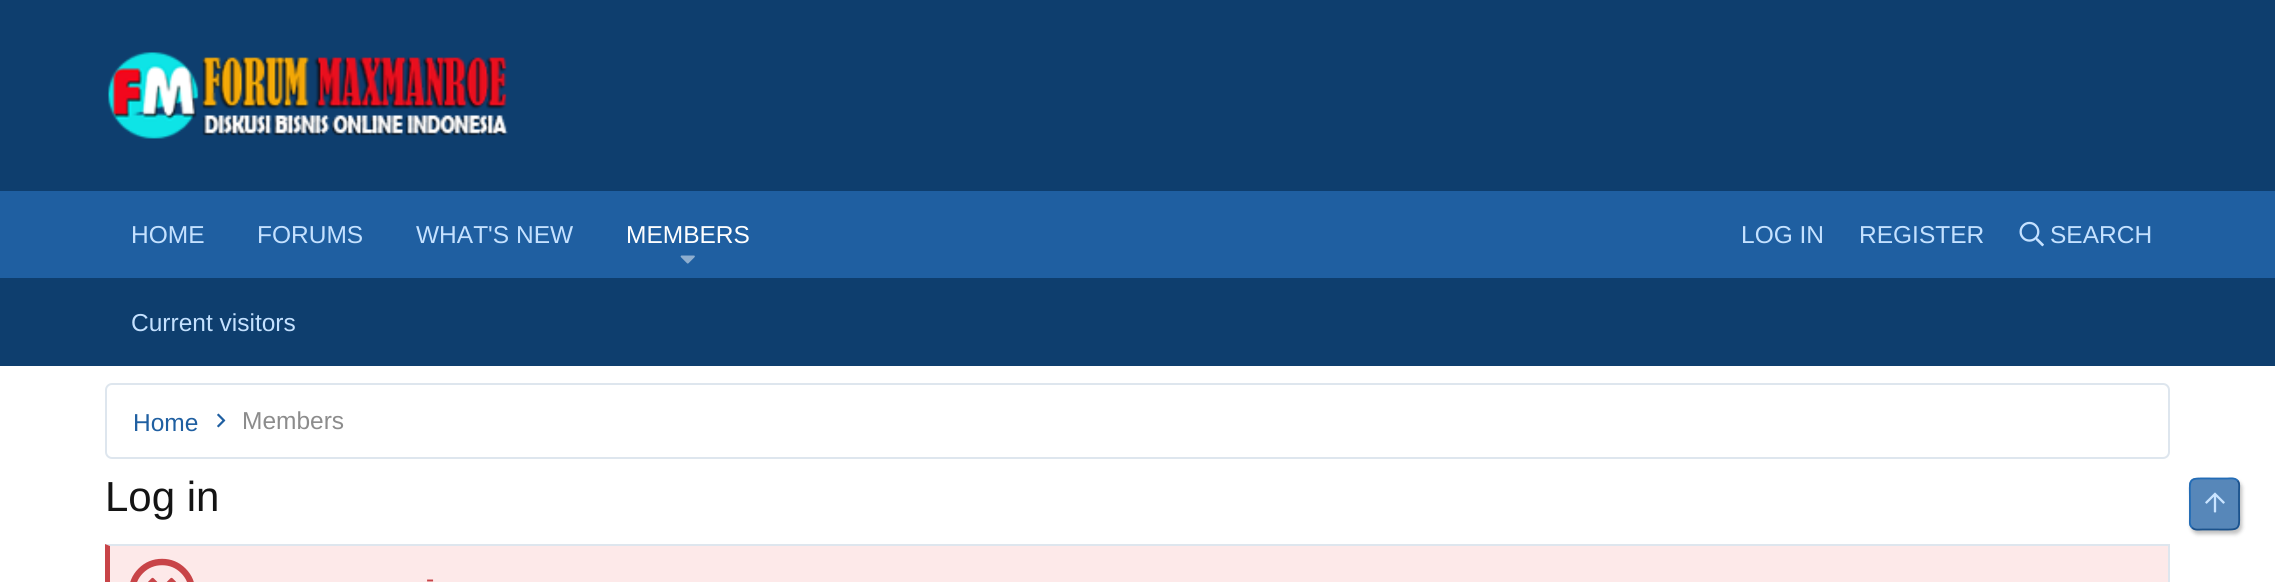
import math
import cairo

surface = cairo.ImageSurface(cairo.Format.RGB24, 2275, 582)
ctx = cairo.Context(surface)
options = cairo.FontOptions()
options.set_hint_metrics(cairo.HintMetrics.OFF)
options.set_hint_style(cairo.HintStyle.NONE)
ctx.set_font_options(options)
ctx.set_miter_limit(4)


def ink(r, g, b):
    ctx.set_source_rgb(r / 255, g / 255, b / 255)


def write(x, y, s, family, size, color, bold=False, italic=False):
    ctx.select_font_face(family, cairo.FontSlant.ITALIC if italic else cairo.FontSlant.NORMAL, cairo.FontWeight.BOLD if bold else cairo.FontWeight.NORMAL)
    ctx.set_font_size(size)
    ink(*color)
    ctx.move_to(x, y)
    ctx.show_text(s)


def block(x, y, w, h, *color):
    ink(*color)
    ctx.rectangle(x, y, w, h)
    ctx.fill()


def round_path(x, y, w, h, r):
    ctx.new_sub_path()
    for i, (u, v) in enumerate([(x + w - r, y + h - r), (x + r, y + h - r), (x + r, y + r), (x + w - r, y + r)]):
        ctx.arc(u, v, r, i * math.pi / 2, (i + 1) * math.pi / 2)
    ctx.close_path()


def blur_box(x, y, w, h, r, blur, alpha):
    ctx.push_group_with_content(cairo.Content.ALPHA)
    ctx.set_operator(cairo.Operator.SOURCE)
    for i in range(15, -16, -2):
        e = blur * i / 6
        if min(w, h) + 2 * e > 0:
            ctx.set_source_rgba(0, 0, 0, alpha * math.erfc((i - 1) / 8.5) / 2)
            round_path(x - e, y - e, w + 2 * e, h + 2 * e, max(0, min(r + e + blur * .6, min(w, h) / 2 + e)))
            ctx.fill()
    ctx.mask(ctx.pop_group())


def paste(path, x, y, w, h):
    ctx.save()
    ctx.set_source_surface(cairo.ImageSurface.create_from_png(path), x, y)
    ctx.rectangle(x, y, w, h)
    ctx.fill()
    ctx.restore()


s1 = dict(family="Liberation Sans", size=24.5, color=(196, 225, 255))
s2 = dict(family="Liberation Sans", size=24.5, color=(254, 254, 254))
s3 = dict(family="Liberation Sans", size=24.5, color=(31, 95, 161))
s4 = dict(family="Liberation Sans", size=24.5, color=(140, 140, 140))
s5 = dict(family="Liberation Sans", size=42, color=(20, 20, 20))
s6 = dict(family="Liberation Sans", size=24.5, color=(200, 68, 72))

ink(255, 255, 255)
ctx.paint()
block(0, 0, 2275, 191, 14, 62, 110)
paste("pic1.png", 108, 52, 400, 87)
block(0, 191, 2275, 87, 31, 95, 161)
write(131, 243, "HOME", **s1)
write(257, 243, "FORUMS", **s1)
write(416, 243, "WHAT'S NEW", **s1)
write(626, 243, "MEMBERS", **s2)
paste("pic2.png", 680, 255, 15, 9)
write(1741, 243, "LOG IN", **s1)
write(1859, 243, "REGISTER", **s1)
paste("pic3.png", 2019, 221, 25, 26)
write(2050, 243, "SEARCH", **s1)
block(0, 278, 2275, 88, 14, 62, 110)
write(131, 331, "Current visitors", **s1)
round_path(106, 384, 2063, 74, 6)
ink(222, 230, 238)
ctx.stroke()
write(133, 431, "Home", **s3)
paste("pic4.png", 217, 413, 9, 15)
write(242, 429, "Members", **s4)
write(105, 511, "Log in", **s5)
block(110, 546, 2058, 36, 253, 233, 233)
ink(222, 230, 238)
ctx.new_path()
ctx.move_to(105, 544)
ctx.line_to(2170, 544)
ctx.line_to(2168, 546)
ctx.line_to(110, 546)
ctx.close_path()
ctx.fill()
block(2168, 544, 2, 38, 222, 230, 238)
ink(200, 68, 72)
ctx.new_path()
ctx.move_to(105, 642)
ctx.line_to(105, 544)
ctx.line_to(110, 546)
ctx.line_to(110, 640)
ctx.close_path()
ctx.fill()
paste("pic5.png", 130, 558, 64, 24)
write(426, 587, "-", **s6)
ctx.save()
ctx.set_fill_rule(cairo.FillRule.EVEN_ODD)
ctx.new_path()
ctx.move_to(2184, 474)
ctx.line_to(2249, 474)
ctx.line_to(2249, 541)
ctx.line_to(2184, 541)
ctx.close_path()
ctx.move_to(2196, 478)
ctx.line_to(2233, 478)
ctx.curve_to(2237, 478, 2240, 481, 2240, 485)
ctx.line_to(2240, 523)
ctx.curve_to(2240, 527, 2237, 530, 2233, 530)
ctx.line_to(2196, 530)
ctx.curve_to(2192, 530, 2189, 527, 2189, 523)
ctx.line_to(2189, 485)
ctx.curve_to(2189, 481, 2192, 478, 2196, 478)
ctx.close_path()
ctx.clip()
ink(0, 0, 0)
blur_box(2191, 481, 51, 53, 7, 2, 0.25)
ctx.restore()
ctx.set_source_rgba(0.122, 0.373, 0.631, 0.75)
round_path(2189, 478, 51, 52, 7)
ctx.fill()
ctx.new_path()
ctx.move_to(2237.5, 480.5)
ctx.curve_to(2240, 483, 2239, 488, 2239, 491)
ctx.line_to(2239, 504)
ctx.curve_to(2239, 532.5, 2243, 529.5, 2214.5, 529.5)
ctx.line_to(2202.5, 529.5)
ctx.curve_to(2199, 529.5, 2194.5, 530.5, 2192, 527.5)
ink(27, 82, 140)
ctx.set_line_width(1.8)
ctx.stroke()
ctx.new_path()
ctx.move_to(2192, 527.5)
ctx.curve_to(2189, 525, 2190, 520, 2190, 517)
ctx.line_to(2190, 504)
ctx.curve_to(2190, 475.5, 2186, 478.5, 2214.5, 478.5)
ctx.line_to(2227, 478.5)
ctx.curve_to(2230, 478.5, 2234.5, 477.5, 2237.5, 480.5)
ink(35, 108, 182)
ctx.stroke()
paste("pic6.png", 2205, 492, 20, 21)
surface.write_to_png("screenshot.png")
